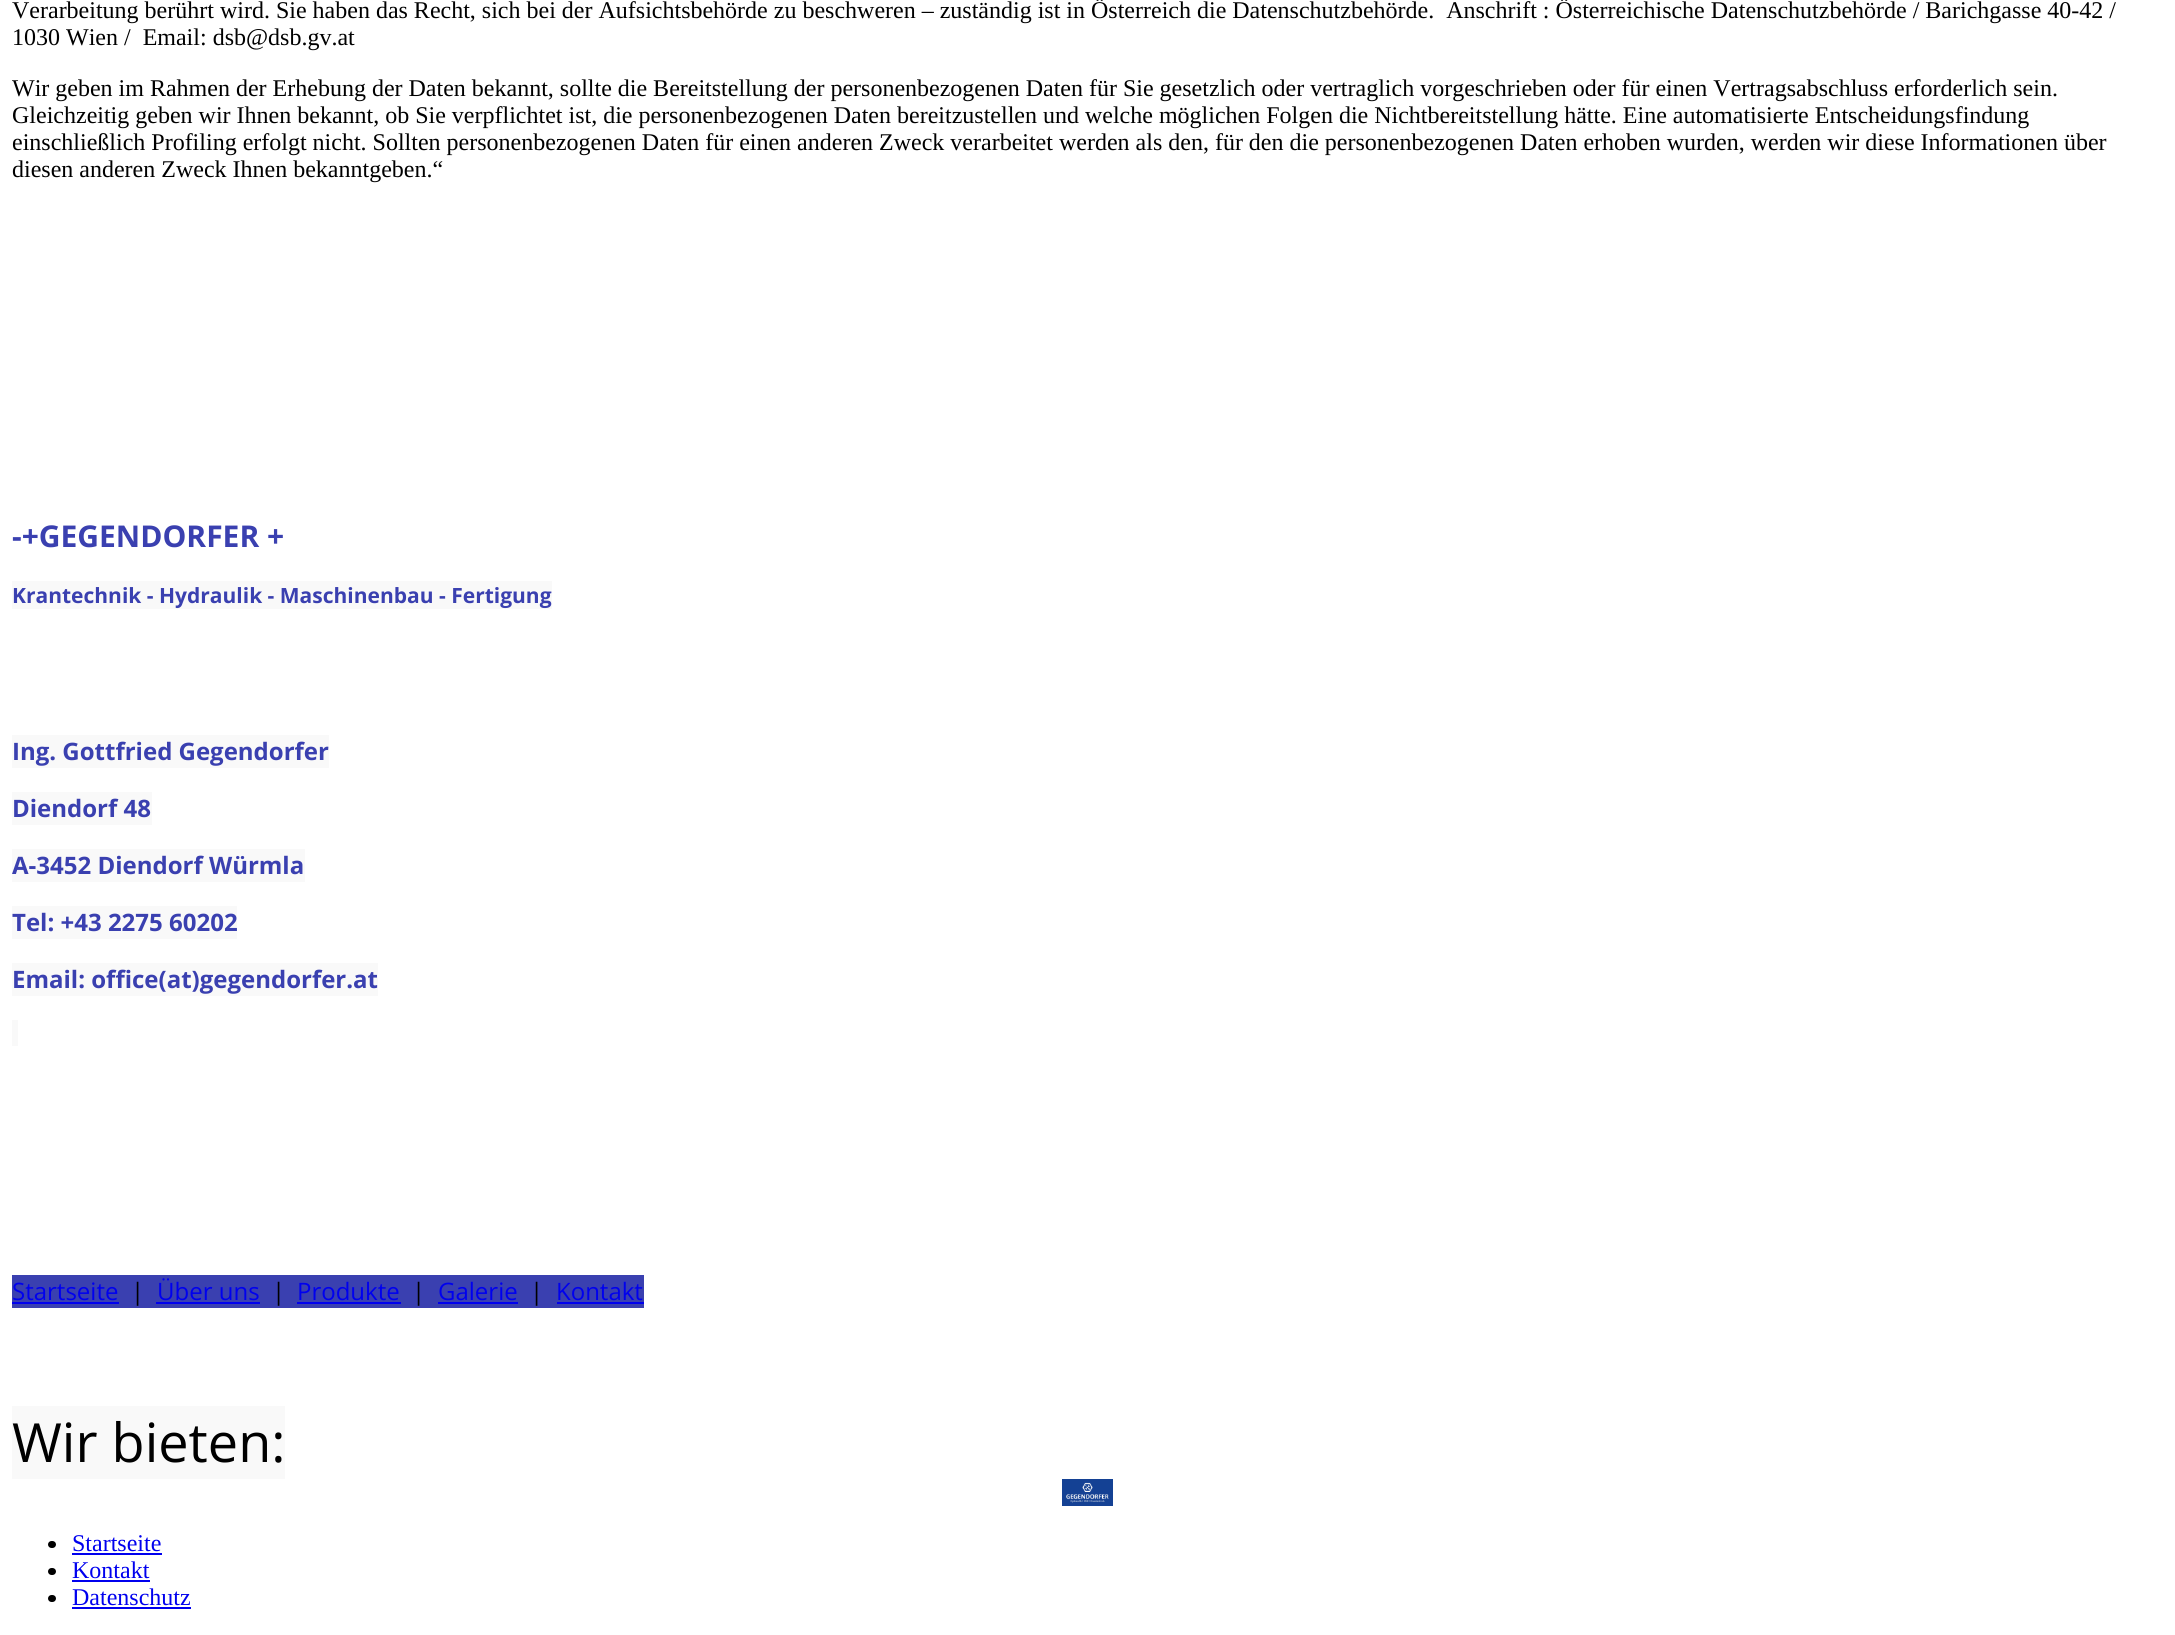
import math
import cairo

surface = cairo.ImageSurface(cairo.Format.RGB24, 2175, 1635)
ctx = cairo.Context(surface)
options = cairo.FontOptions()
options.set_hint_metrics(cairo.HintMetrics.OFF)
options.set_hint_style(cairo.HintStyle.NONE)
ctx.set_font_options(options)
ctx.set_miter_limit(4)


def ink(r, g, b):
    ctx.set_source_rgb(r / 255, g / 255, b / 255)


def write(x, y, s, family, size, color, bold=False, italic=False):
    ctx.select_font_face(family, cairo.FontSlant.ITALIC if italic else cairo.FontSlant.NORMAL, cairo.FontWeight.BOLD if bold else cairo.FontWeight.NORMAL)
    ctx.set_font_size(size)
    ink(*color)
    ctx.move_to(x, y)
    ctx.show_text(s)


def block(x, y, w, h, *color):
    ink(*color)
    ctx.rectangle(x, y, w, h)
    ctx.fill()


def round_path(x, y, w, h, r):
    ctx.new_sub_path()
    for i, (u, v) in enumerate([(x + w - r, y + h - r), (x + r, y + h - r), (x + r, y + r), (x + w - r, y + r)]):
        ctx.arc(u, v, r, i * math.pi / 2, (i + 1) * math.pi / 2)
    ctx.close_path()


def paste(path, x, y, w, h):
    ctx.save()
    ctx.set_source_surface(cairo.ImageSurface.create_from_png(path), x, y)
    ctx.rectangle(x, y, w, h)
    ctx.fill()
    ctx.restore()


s1 = dict(family="Liberation Serif", size=24, color=(0, 0, 0))
s2 = dict(family="Open Sans", size=30, color=(58, 64, 176), bold=True)
s3 = dict(family="Open Sans", size=21, color=(58, 64, 176), bold=True)
s4 = dict(family="Open Sans", size=24, color=(58, 64, 176), bold=True)
s5 = dict(family="Open Sans", size=24, color=(0, 0, 238))
s6 = dict(family="Open Sans", size=24, color=(0, 0, 0))
s7 = dict(family="Open Sans", size=54, color=(0, 0, 0))
s8 = dict(family="Liberation Serif", size=24, color=(0, 0, 238))

ink(255, 255, 255)
ctx.paint()
write(12, 18, "Verarbeitung berührt wird. Sie haben das Recht, sich bei der Aufsichtsbehörde zu beschweren – zuständig ist in Österreich die Datenschutzbehörde.  Anschrift : Österreichische Datenschutzbehörde / Barichgasse 40-42 /", **s1)
write(12, 45, "1030 Wien /  Email: dsb@dsb.gv.at", **s1)
write(12, 96, "Wir geben im Rahmen der Erhebung der Daten bekannt, sollte die Bereitstellung der personenbezogenen Daten für Sie gesetzlich oder vertraglich vorgeschrieben oder für einen Vertragsabschluss erforderlich sein.", **s1)
write(12, 123, "Gleichzeitig geben wir Ihnen bekannt, ob Sie verpflichtet ist, die personenbezogenen Daten bereitzustellen und welche möglichen Folgen die Nichtbereitstellung hätte. Eine automatisierte Entscheidungsfindung", **s1)
write(12, 150, "einschließlich Profiling erfolgt nicht. Sollten personenbezogenen Daten für einen anderen Zweck verarbeitet werden als den, für den die personenbezogenen Daten erhoben wurden, werden wir diese Informationen über", **s1)
write(12, 177, "diesen anderen Zweck Ihnen bekanntgeben.“", **s1)
write(12, 547, "-+GEGENDORFER +", **s2)
block(12, 581, 540, 28, 249, 249, 249)
write(12, 603, "Krantechnik - Hydraulik - Maschinenbau - Fertigung", **s3)
block(12, 735, 317, 33, 249, 249, 249)
write(12, 760, "Ing. Gottfried Gegendorfer", **s4)
block(12, 792, 140, 33, 249, 249, 249)
write(12, 817, "Diendorf 48", **s4)
block(12, 849, 293, 33, 249, 249, 249)
write(12, 874, "A-3452 Diendorf Würmla", **s4)
block(12, 906, 225, 33, 249, 249, 249)
write(12, 931, "Tel: +43 2275 60202", **s4)
block(12, 963, 366, 33, 249, 249, 249)
write(12, 988, "Email: office(at)gegendorfer.at", **s4)
block(12, 1020, 6, 26, 249, 249, 249)
block(12, 1275, 632, 33, 58, 64, 176)
write(12, 1300, "Startseite", **s5)
block(12, 1302, 107, 2, 0, 0, 238)
write(131, 1300, "|", **s6)
write(157, 1300, "Über uns", **s5)
block(156, 1302, 104, 2, 0, 0, 238)
write(272, 1300, "|", **s6)
write(297, 1300, "Produkte", **s5)
block(297, 1302, 104, 2, 0, 0, 238)
write(412, 1300, "|", **s6)
write(438, 1300, "Galerie", **s5)
block(438, 1302, 80, 2, 0, 0, 238)
write(530, 1300, "|", **s6)
write(556, 1300, "Kontakt", **s5)
block(557, 1302, 87, 2, 0, 0, 238)
block(12, 1406, 273, 73, 249, 249, 249)
write(12, 1462, "Wir bieten:", **s7)
paste("pic1.png", 1062, 1479, 51, 27)
round_path(48, 1541, 8, 7, 3.5)
ctx.fill()
write(72, 1551, "Startseite", **s8)
block(72, 1553, 90, 2, 0, 0, 238)
ink(0, 0, 0)
round_path(48, 1568, 8, 7, 3.5)
ctx.fill()
write(72, 1578, "Kontakt", **s8)
block(72, 1580, 78, 2, 0, 0, 238)
ink(0, 0, 0)
round_path(48, 1595, 8, 7, 3.5)
ctx.fill()
write(72, 1605, "Datenschutz", **s8)
block(72, 1607, 119, 2, 0, 0, 238)
surface.write_to_png("screenshot.png")
